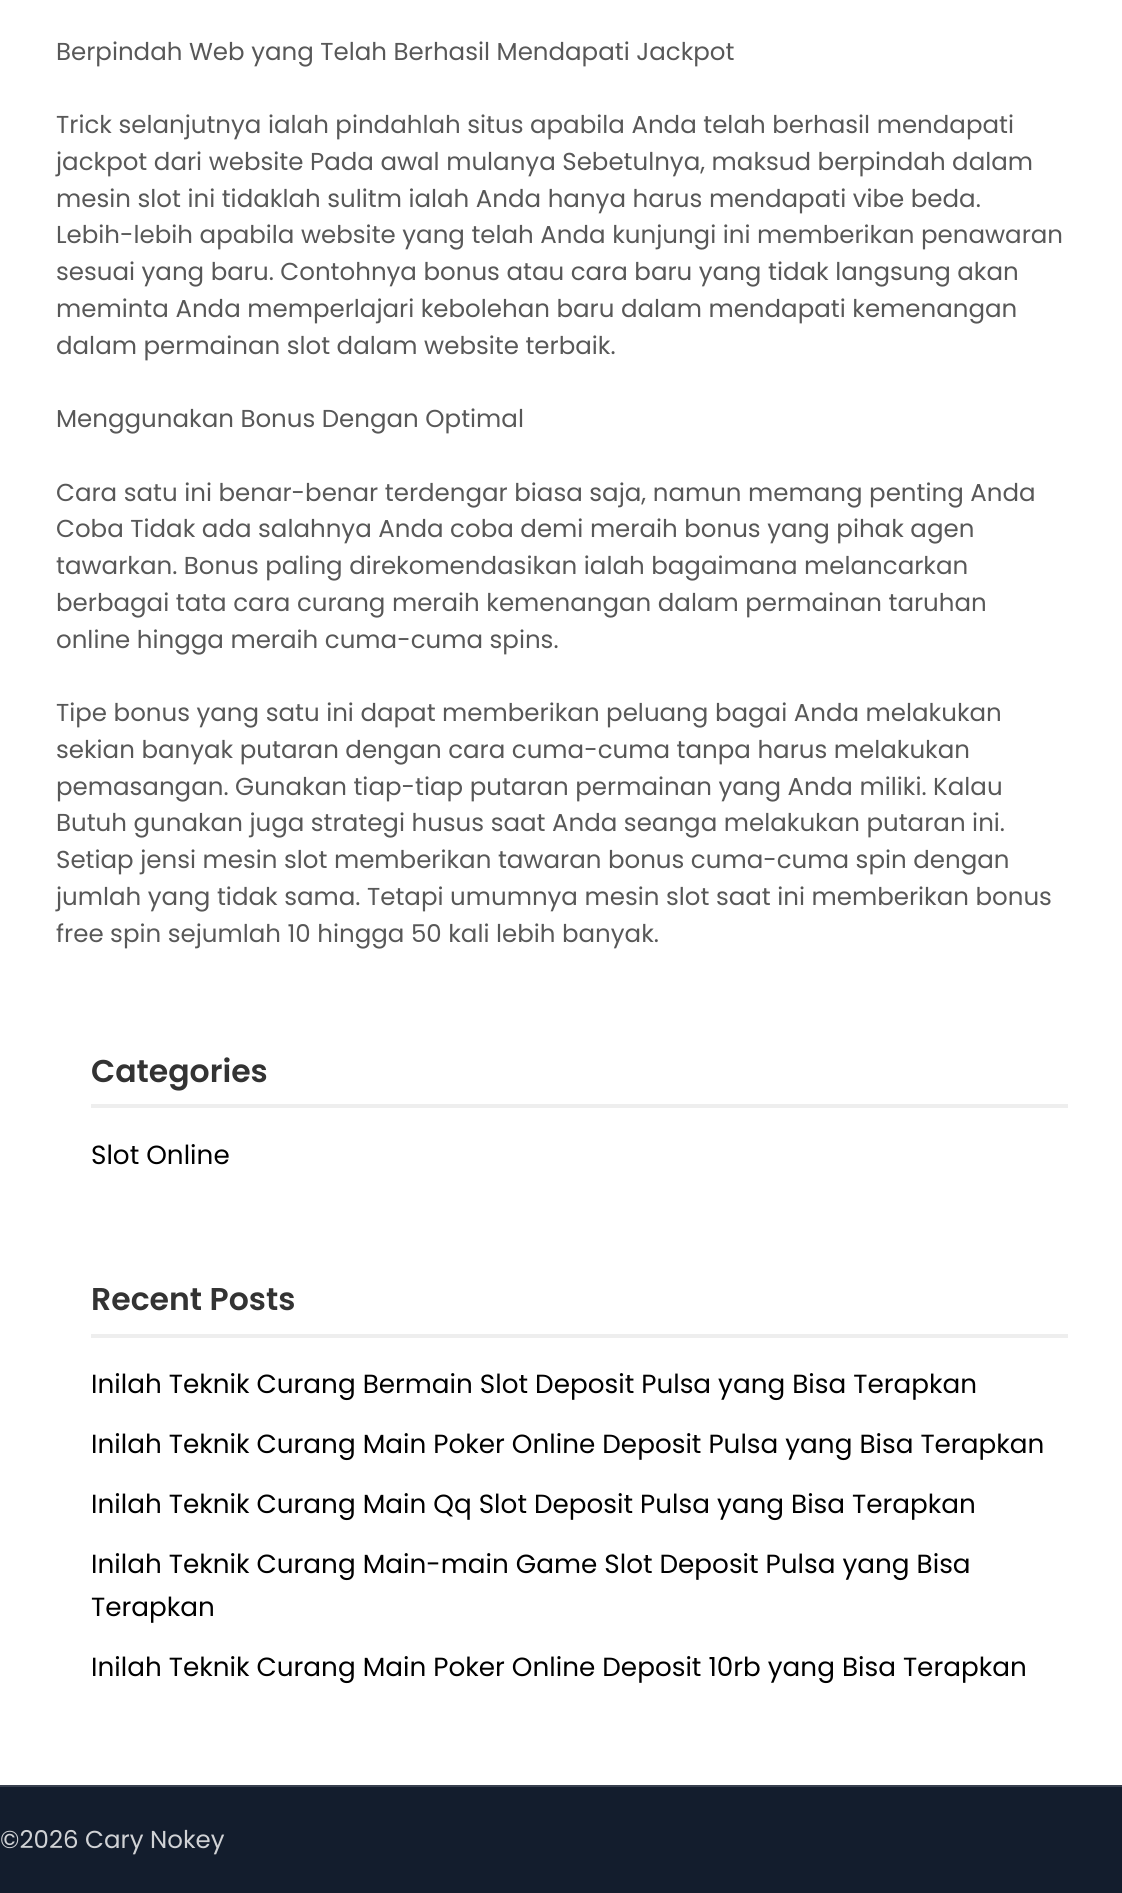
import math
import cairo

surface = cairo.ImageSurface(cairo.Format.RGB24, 1122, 1893)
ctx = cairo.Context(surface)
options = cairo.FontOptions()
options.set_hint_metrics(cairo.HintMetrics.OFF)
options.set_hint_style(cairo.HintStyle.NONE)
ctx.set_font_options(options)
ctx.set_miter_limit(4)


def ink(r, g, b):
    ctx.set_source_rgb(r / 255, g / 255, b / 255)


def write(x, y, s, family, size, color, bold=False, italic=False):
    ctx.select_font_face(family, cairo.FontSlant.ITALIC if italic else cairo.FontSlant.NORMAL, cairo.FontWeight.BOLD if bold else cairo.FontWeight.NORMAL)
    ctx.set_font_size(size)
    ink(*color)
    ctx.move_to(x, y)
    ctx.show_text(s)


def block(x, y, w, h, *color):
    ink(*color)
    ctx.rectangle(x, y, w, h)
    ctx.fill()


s1 = dict(family="Poppins", size=24.5, color=(88, 88, 88))
s2 = dict(family="Poppins SemiBold", size=31.5, color=(51, 51, 51))
s3 = dict(family="Poppins", size=26.25, color=(0, 0, 0))
s4 = dict(family="Poppins", size=24.5, color=(208, 210, 213))

ink(255, 255, 255)
ctx.paint()
write(56, 60, "Berpindah Web yang Telah Berhasil Mendapati Jackpot", **s1)
write(56, 133, "Trick selanjutnya ialah pindahlah situs apabila Anda telah berhasil mendapati", **s1)
write(56, 170, "jackpot dari website Pada awal mulanya Sebetulnya, maksud berpindah dalam", **s1)
write(56, 207, "mesin slot ini tidaklah sulitm ialah Anda hanya harus mendapati vibe beda.", **s1)
write(56, 243, "Lebih-lebih apabila website yang telah Anda kunjungi ini memberikan penawaran", **s1)
write(56, 280, "sesuai yang baru. Contohnya bonus atau cara baru yang tidak langsung akan", **s1)
write(56, 317, "meminta Anda memperlajari kebolehan baru dalam mendapati kemenangan", **s1)
write(56, 354, "dalam permainan slot dalam website terbaik.", **s1)
write(56, 427, "Menggunakan Bonus Dengan Optimal", **s1)
write(56, 501, "Cara satu ini benar-benar terdengar biasa saja, namun memang penting Anda", **s1)
write(56, 537, "Coba Tidak ada salahnya Anda coba demi meraih bonus yang pihak agen", **s1)
write(56, 574, "tawarkan. Bonus paling direkomendasikan ialah bagaimana melancarkan", **s1)
write(56, 611, "berbagai tata cara curang meraih kemenangan dalam permainan taruhan", **s1)
write(56, 648, "online hingga meraih cuma-cuma spins.", **s1)
write(56, 721, "Tipe bonus yang satu ini dapat memberikan peluang bagai Anda melakukan", **s1)
write(56, 758, "sekian banyak putaran dengan cara cuma-cuma tanpa harus melakukan", **s1)
write(56, 795, "pemasangan. Gunakan tiap-tiap putaran permainan yang Anda miliki. Kalau", **s1)
write(56, 831, "Butuh gunakan juga strategi husus saat Anda seanga melakukan putaran ini.", **s1)
write(56, 868, "Setiap jensi mesin slot memberikan tawaran bonus cuma-cuma spin dengan", **s1)
write(56, 905, "jumlah yang tidak sama. Tetapi umumnya mesin slot saat ini memberikan bonus", **s1)
write(56, 942, "free spin sejumlah 10 hingga 50 kali lebih banyak.", **s1)
block(91, 1104, 977, 4, 238, 238, 238)
write(91, 1082, "Categories", **s2)
write(91, 1164, "Slot Online", **s3)
block(91, 1334, 977, 4, 238, 238, 238)
write(91, 1310, "Recent Posts", **s2)
write(91, 1393, "Inilah Teknik Curang Bermain Slot Deposit Pulsa yang Bisa Terapkan", **s3)
write(91, 1453, "Inilah Teknik Curang Main Poker Online Deposit Pulsa yang Bisa Terapkan", **s3)
write(91, 1513, "Inilah Teknik Curang Main Qq Slot Deposit Pulsa yang Bisa Terapkan", **s3)
write(91, 1573, "Inilah Teknik Curang Main-main Game Slot Deposit Pulsa yang Bisa", **s3)
write(91, 1616, "Terapkan", **s3)
write(91, 1676, "Inilah Teknik Curang Main Poker Online Deposit 10rb yang Bisa Terapkan", **s3)
block(0, 1787, 1122, 106, 19, 29, 45)
block(0, 1785, 1122, 2, 57, 65, 79)
write(0, 1848, "©2026 Cary Nokey", **s4)
surface.write_to_png("screenshot.png")
